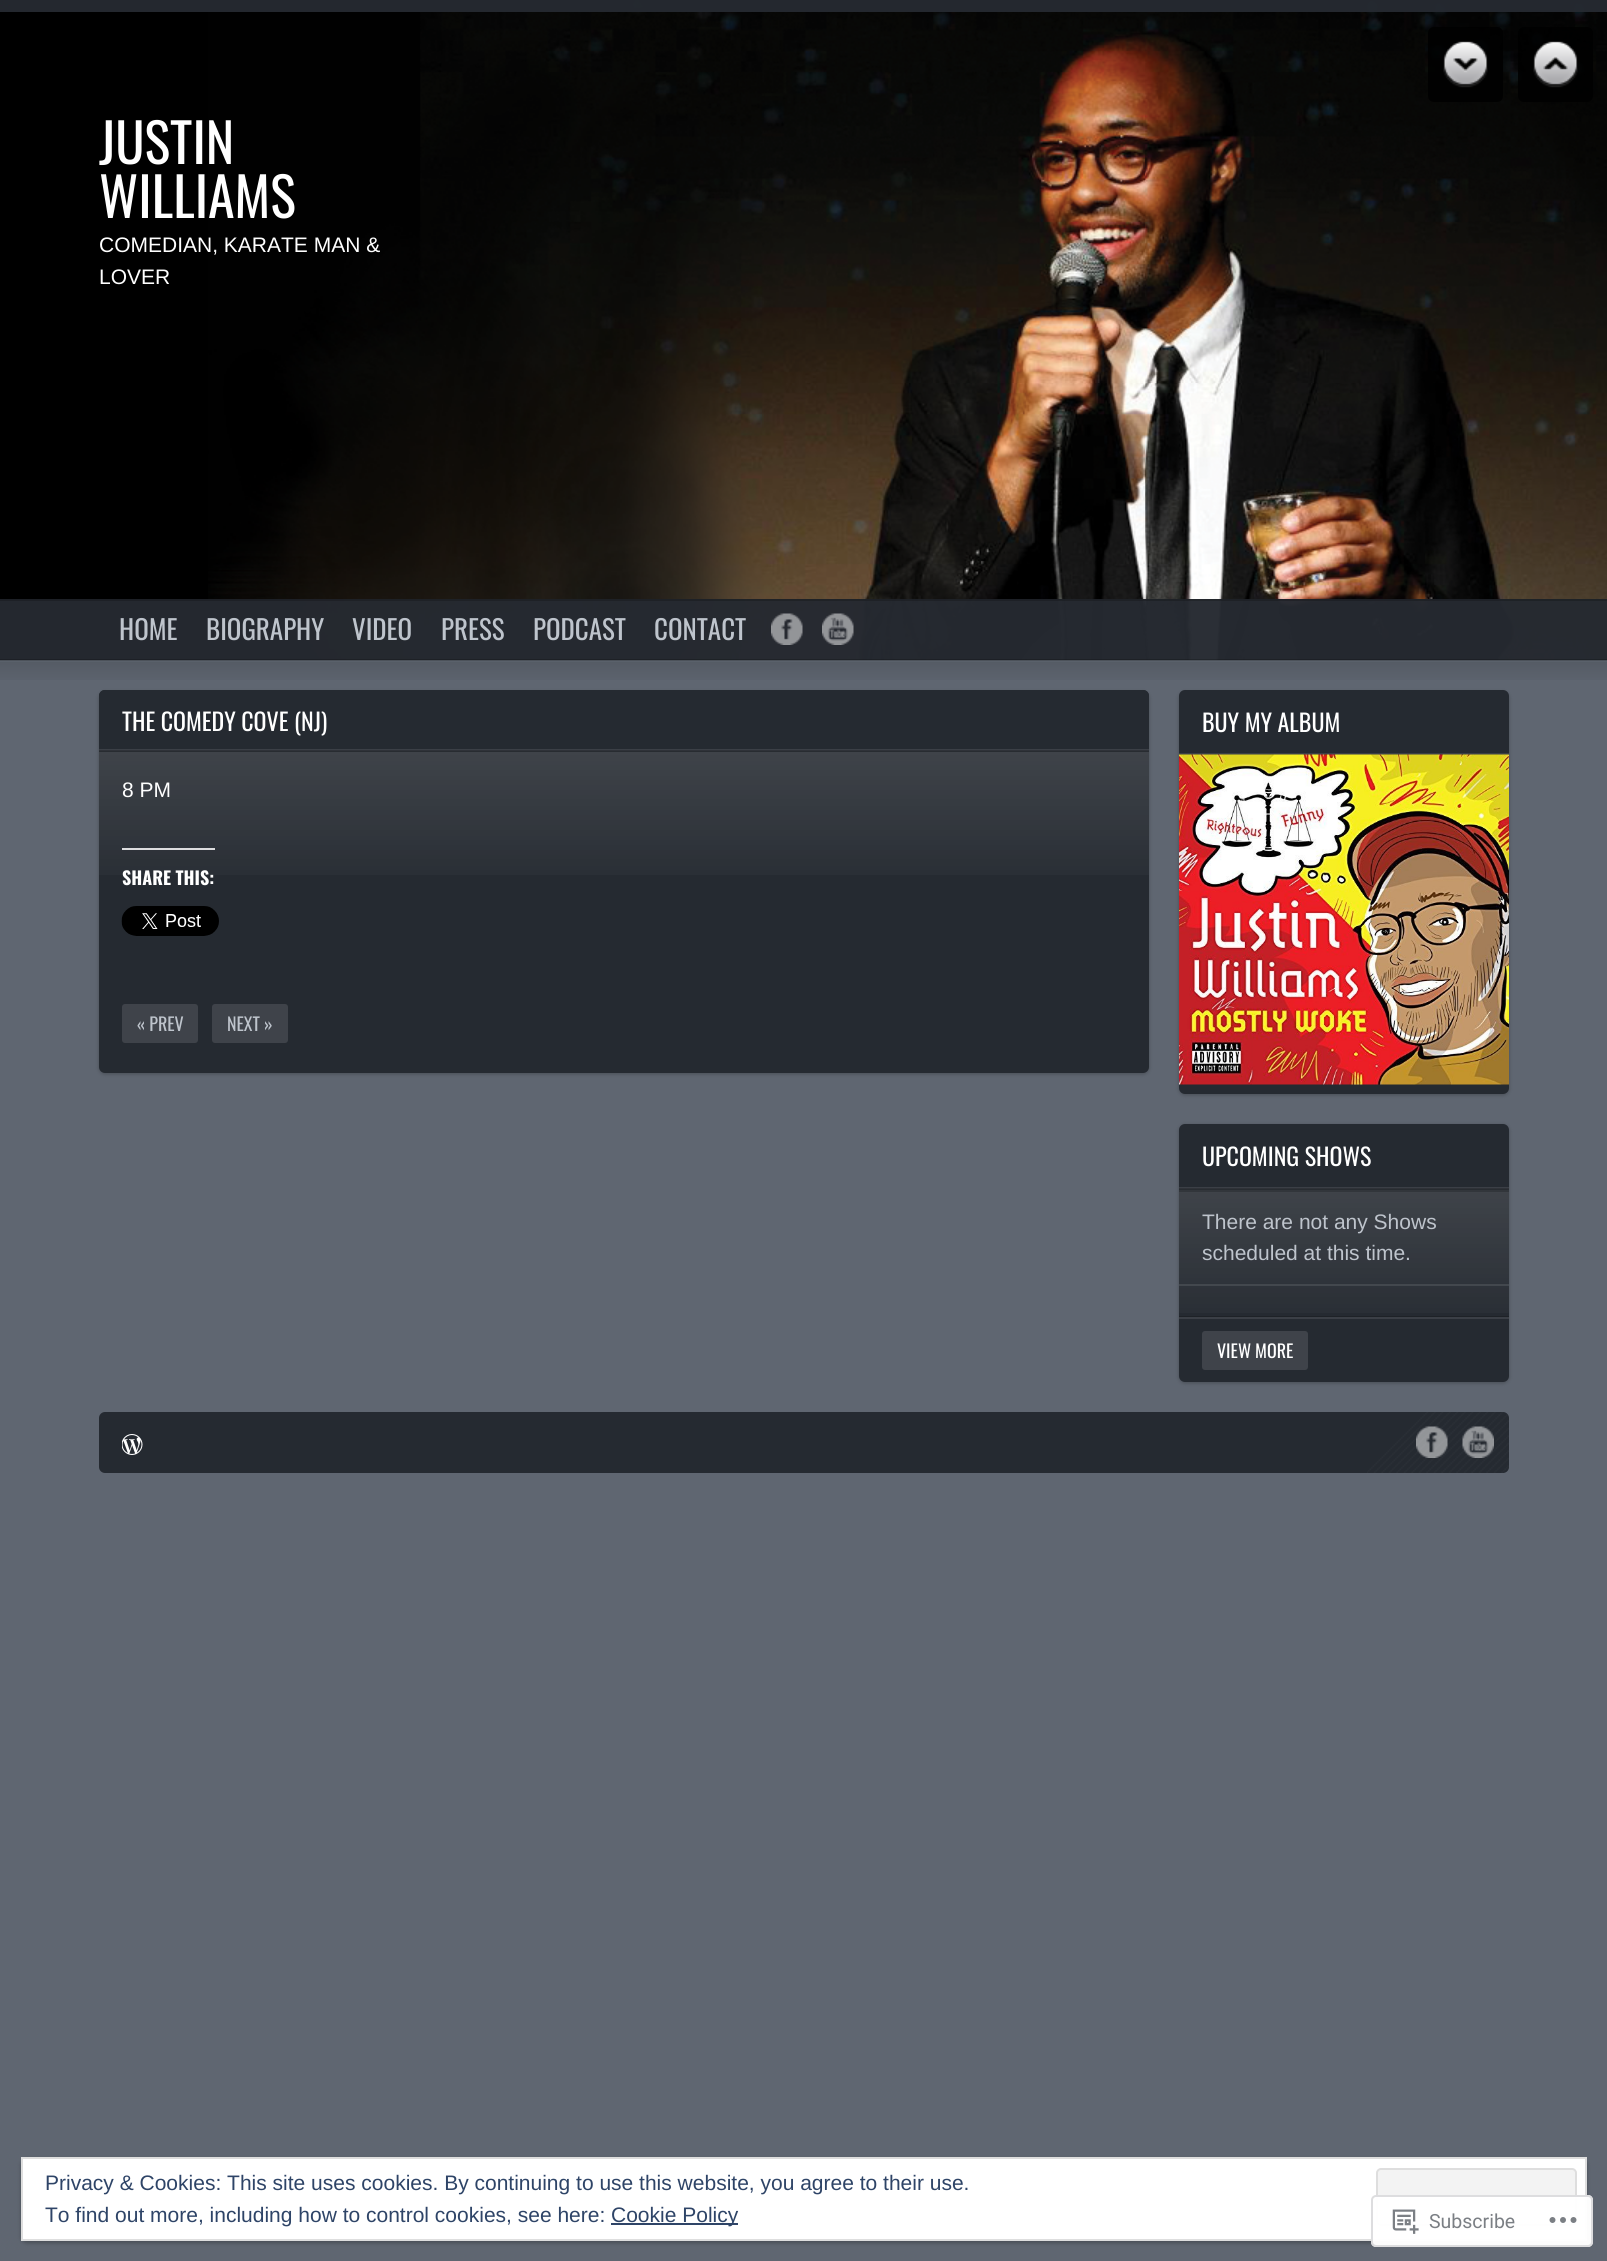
import math
import cairo

surface = cairo.ImageSurface(cairo.Format.RGB24, 1607, 2261)
ctx = cairo.Context(surface)
options = cairo.FontOptions()
options.set_hint_metrics(cairo.HintMetrics.OFF)
options.set_hint_style(cairo.HintStyle.NONE)
ctx.set_font_options(options)
ctx.set_miter_limit(4)


def ink(r, g, b):
    ctx.set_source_rgb(r / 255, g / 255, b / 255)


def write(x, y, s, family, size, color, bold=False, italic=False):
    ctx.select_font_face(family, cairo.FontSlant.ITALIC if italic else cairo.FontSlant.NORMAL, cairo.FontWeight.BOLD if bold else cairo.FontWeight.NORMAL)
    ctx.set_font_size(size)
    ink(*color)
    ctx.move_to(x, y)
    ctx.show_text(s)


def block(x, y, w, h, *color):
    ink(*color)
    ctx.rectangle(x, y, w, h)
    ctx.fill()


def round_path(x, y, w, h, r):
    ctx.new_sub_path()
    for i, (u, v) in enumerate([(x + w - r, y + h - r), (x + r, y + h - r), (x + r, y + r), (x + w - r, y + r)]):
        ctx.arc(u, v, r, i * math.pi / 2, (i + 1) * math.pi / 2)
    ctx.close_path()


def blur_box(x, y, w, h, r, blur, alpha):
    ctx.push_group_with_content(cairo.Content.ALPHA)
    ctx.set_operator(cairo.Operator.SOURCE)
    for i in range(15, -16, -2):
        e = blur * i / 6
        if min(w, h) + 2 * e > 0:
            ctx.set_source_rgba(0, 0, 0, alpha * math.erfc((i - 1) / 8.5) / 2)
            round_path(x - e, y - e, w + 2 * e, h + 2 * e, max(0, min(r + e + blur * .6, min(w, h) / 2 + e)))
            ctx.fill()
    ctx.mask(ctx.pop_group())


def paste(path, x, y, w, h):
    ctx.save()
    ctx.set_source_surface(cairo.ImageSurface.create_from_png(path), x, y)
    ctx.rectangle(x, y, w, h)
    ctx.fill()
    ctx.restore()


s1 = dict(family="Oswald", size=54, color=(255, 255, 255))
s2 = dict(family="Liberation Sans", size=21, color=(255, 255, 255))
s3 = dict(family="Oswald", size=27, color=(190, 196, 204))
s4 = dict(family="Oswald", size=24, color=(255, 255, 255))
s5 = dict(family="Oswald", size=18, color=(255, 255, 255), bold=True)
s6 = dict(family="Oswald", size=18, color=(190, 196, 204))
s7 = dict(family="Liberation Sans", size=21, color=(190, 196, 204))
s8 = dict(family="Oswald", size=18, color=(255, 255, 255))
s9 = dict(family="Liberation Sans", size=21, color=(46, 68, 103))
s10 = dict(family="Roboto", size=19.5, color=(123, 127, 132))

ink(95, 102, 113)
ctx.paint()
paste("pic1.png", 0, 661, 1607, 19)
block(0, 0, 208, 660, 0, 0, 0)
paste("pic2.png", 208, 0, 1399, 660)
ctx.set_source_rgba(0, 0, 0, 0.85)
round_path(1428, 27, 75, 75, 6)
ctx.fill()
paste("pic3.png", 1443, 41, 45, 47)
round_path(1518, 27, 75, 75, 6)
ctx.fill()
paste("pic4.png", 1533, 41, 45, 47)
ctx.set_source_rgba(0.145, 0.165, 0.192, 0.97)
ctx.rectangle(0, 0, 1607, 12)
ctx.fill()
write(99, 164, "JUSTIN", **s1)
write(99, 218, "WILLIAMS", **s1)
write(99, 252, "COMEDIAN, KARATE MAN &", **s2)
write(99, 284, "LOVER", **s2)
ctx.set_source_rgba(0.145, 0.165, 0.192, 0.97)
ctx.rectangle(0, 599, 1607, 61)
ctx.fill()
ctx.set_source_rgba(0, 0, 0, 0.2)
ctx.rectangle(0, 599, 1607, 2)
ctx.fill()
ctx.rectangle(0, 659, 1607, 2)
ctx.fill()
write(119, 640, "HOME", **s3)
write(206, 640, "BIOGRAPHY", **s3)
write(352, 640, "VIDEO", **s3)
write(441, 640, "PRESS", **s3)
write(533, 640, "PODCAST", **s3)
write(654, 640, "CONTACT", **s3)
paste("pic5.png", 771, 613, 32, 32)
paste("pic6.png", 822, 613, 32, 32)
ink(0, 0, 0)
blur_box(99, 692, 1050, 382, 6, 2, 0.25)
ink(37, 42, 49)
round_path(99, 690, 1050, 383, 6)
ctx.fill()
ctx.new_path()
ctx.move_to(105, 690)
ctx.line_to(1143, 690)
ctx.curve_to(1146.5, 690, 1149, 692.5, 1149, 696)
ctx.line_to(1149, 750)
ctx.line_to(99, 750)
ctx.line_to(99, 696)
ctx.curve_to(99, 692.5, 101.5, 690, 105, 690)
ctx.close_path()
ctx.fill()
block(99, 749, 1050, 2, 59, 63, 70)
write(122, 731, "THE COMEDY COVE (NJ)", **s4)
paste("pic7.png", 99, 751, 1050, 124)
ctx.set_source_rgba(0, 0, 0, 0.2)
ctx.rectangle(99, 750, 1050, 2)
ctx.fill()
write(122, 797, "8 PM", **s2)
block(122, 848, 93, 2, 220, 220, 222)
write(122, 885, "SHARE THIS:", **s5)
paste("pic8.png", 121, 906, 98, 30)
ink(63, 67, 74)
round_path(122, 1004, 76, 39, 3)
ctx.fill()
write(137, 1031, "« PREV", **s6)
ink(63, 67, 74)
round_path(212, 1004, 76, 39, 3)
ctx.fill()
write(227, 1031, "NEXT »", **s6)
ink(0, 0, 0)
blur_box(1179, 692, 330, 403, 6, 2, 0.25)
ink(37, 42, 49)
round_path(1179, 690, 330, 404, 6)
ctx.fill()
block(1179, 753, 330, 2, 59, 63, 70)
write(1202, 732, "BUY MY ALBUM", **s4)
paste("pic9.png", 1179, 754, 330, 331)
ink(0, 0, 0)
blur_box(1179, 1125, 330, 258, 6, 2, 0.25)
ink(37, 42, 49)
round_path(1179, 1124, 330, 258, 6)
ctx.fill()
block(1179, 1187, 330, 2, 59, 63, 70)
write(1202, 1166, "UPCOMING SHOWS", **s4)
paste("pic10.png", 1179, 1189, 330, 124)
ctx.set_source_rgba(0, 0, 0, 0.2)
ctx.rectangle(1179, 1188, 330, 2)
ctx.fill()
block(1179, 1190, 330, 2, 50, 54, 59)
block(1179, 1284, 330, 2, 67, 72, 78)
write(1202, 1229, "There are not any Shows", **s7)
write(1202, 1260, "scheduled at this time.", **s7)
block(1179, 1316, 330, 1, 30, 34, 39)
block(1179, 1317, 330, 2, 59, 63, 70)
ink(63, 67, 74)
round_path(1202, 1331, 106, 39, 3)
ctx.fill()
write(1217, 1358, "VIEW MORE", **s8)
ink(37, 42, 49)
round_path(99, 1412, 1410, 61, 6)
ctx.fill()
paste("pic11.png", 122, 1434, 21, 21)
paste("pic12.png", 1367, 1412, 142, 61)
paste("pic13.png", 1416, 1426, 32, 32)
paste("pic14.png", 1462, 1426, 32, 32)
ink(0, 0, 0)
blur_box(21, 2159, 1566, 84, 6, 2, 0.25)
ink(255, 255, 255)
ctx.rectangle(22, 2158, 1564, 82)
ctx.fill_preserve()
ink(222, 222, 222)
ctx.stroke()
write(45, 2190, "Privacy & Cookies: This site uses cookies. By continuing to use this website, you agree to their use.", **s9)
ink(243, 243, 243)
round_path(1377, 2169, 199, 56, 4)
ctx.fill_preserve()
ink(222, 222, 222)
ctx.stroke()
write(45, 2222, "To find out more, including how to control cookies, see here:", **s9)
block(611, 2223, 127, 2, 46, 68, 103)
write(611, 2222, "Cookie Policy", **s9)
ctx.set_source_rgba(1, 1, 1, 0.98)
round_path(1371, 2195, 222, 52, 5)
ctx.fill()
round_path(1372, 2196, 220, 50, 4)
ctx.set_source_rgba(0.863, 0.863, 0.871, 0.98)
ctx.stroke()
paste("pic15.png", 1392, 2209, 27, 25)
write(1429, 2228, "Subscribe", **s10)
paste("pic16.png", 1549, 2217, 28, 6)
surface.write_to_png("screenshot.png")
